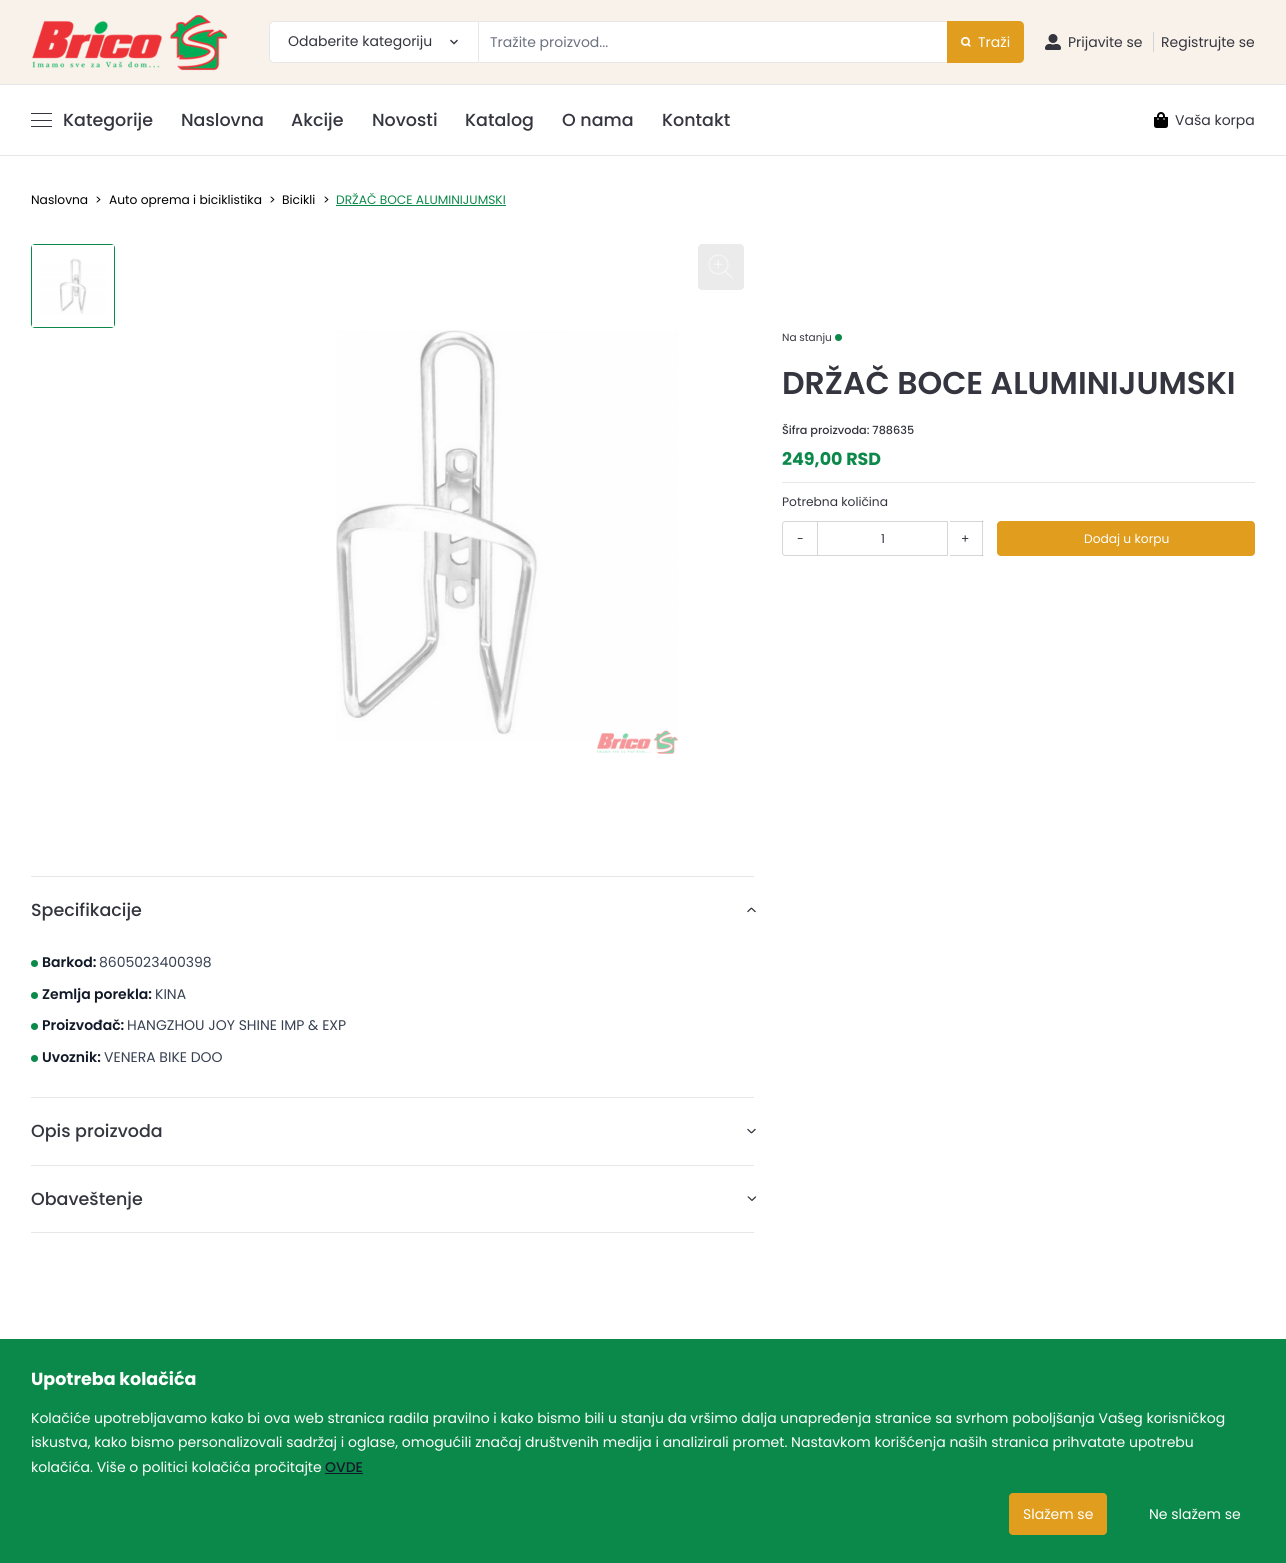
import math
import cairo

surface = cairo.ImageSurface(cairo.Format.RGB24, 1286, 1563)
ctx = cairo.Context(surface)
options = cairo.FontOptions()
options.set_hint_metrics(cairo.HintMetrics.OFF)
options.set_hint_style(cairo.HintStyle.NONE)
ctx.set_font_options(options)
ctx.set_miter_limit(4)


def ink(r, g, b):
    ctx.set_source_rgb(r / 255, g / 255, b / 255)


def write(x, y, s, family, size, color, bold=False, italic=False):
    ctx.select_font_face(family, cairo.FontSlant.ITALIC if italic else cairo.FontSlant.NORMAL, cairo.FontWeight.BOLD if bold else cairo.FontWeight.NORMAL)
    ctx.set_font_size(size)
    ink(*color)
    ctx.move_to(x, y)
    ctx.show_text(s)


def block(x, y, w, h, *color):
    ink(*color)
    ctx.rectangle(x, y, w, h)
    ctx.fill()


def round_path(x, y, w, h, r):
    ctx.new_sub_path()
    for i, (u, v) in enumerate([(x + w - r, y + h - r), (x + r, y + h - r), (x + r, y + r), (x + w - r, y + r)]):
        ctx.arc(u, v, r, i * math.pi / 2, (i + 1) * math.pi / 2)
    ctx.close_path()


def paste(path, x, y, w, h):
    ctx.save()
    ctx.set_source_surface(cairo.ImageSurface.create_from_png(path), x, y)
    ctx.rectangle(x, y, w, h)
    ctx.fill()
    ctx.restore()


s1 = dict(family="Poppins", size=14, color=(52, 53, 62))
s2 = dict(family="Poppins", size=14, color=(107, 114, 128))
s3 = dict(family="Poppins", size=14, color=(255, 255, 255))
s4 = dict(family="Poppins Medium", size=17.5, color=(52, 53, 62))
s5 = dict(family="Poppins", size=12.25, color=(0, 0, 0))
s6 = dict(family="Poppins", size=12.25, color=(11, 137, 74))
s7 = dict(family="Poppins", size=10.5, color=(52, 53, 62))
s8 = dict(family="Poppins SemiBold", size=31.5, color=(52, 53, 62))
s9 = dict(family="Poppins Medium", size=11.25, color=(52, 53, 62))
s10 = dict(family="Poppins", size=17.5, color=(11, 137, 74), bold=True)
s11 = dict(family="Poppins", size=12.25, color=(52, 53, 62))
s12 = dict(family="Poppins", size=12.25, color=(255, 255, 255))
s13 = dict(family="Poppins SemiBold", size=14, color=(17, 24, 39))
s14 = dict(family="Poppins", size=14, color=(55, 65, 81))
s15 = dict(family="Poppins", size=17.5, color=(255, 255, 255), bold=True)
s16 = dict(family="Poppins Medium", size=14, color=(17, 24, 39))

ink(255, 255, 255)
ctx.paint()
block(950, 555, 33, 1, 214, 214, 214)
block(982, 521, 1, 35, 214, 214, 214)
block(982, 555, 1, 1, 180, 180, 180)
block(0, 0, 1286, 84, 248, 242, 234)
paste("pic1.png", 32, 15, 196, 56)
ink(255, 255, 255)
ctx.new_path()
ctx.move_to(274, 21.5)
ctx.line_to(477, 21.5)
ctx.curve_to(478, 21.5, 478.5, 22, 478.5, 23)
ctx.line_to(478.5, 61)
ctx.curve_to(478.5, 62, 478, 62.5, 477, 62.5)
ctx.line_to(274, 62.5)
ctx.curve_to(271.5, 62.5, 269.5, 60.5, 269.5, 58)
ctx.line_to(269.5, 26)
ctx.curve_to(269.5, 23.5, 271.5, 21.5, 274, 21.5)
ctx.close_path()
ctx.fill_preserve()
ink(229, 231, 235)
ctx.set_line_width(1)
ctx.stroke()
write(288, 46, "Odaberite kategoriju", **s1)
paste("pic2.png", 450, 39, 8, 6)
block(479, 22, 468, 40, 255, 255, 255)
block(479, 21, 468, 1, 229, 231, 235)
block(479, 62, 468, 1, 229, 231, 235)
write(490, 47, "Tražite proizvod...", **s2)
ink(224, 157, 30)
ctx.new_path()
ctx.move_to(947, 21)
ctx.line_to(1019, 21)
ctx.curve_to(1022, 21, 1024, 23, 1024, 26)
ctx.line_to(1024, 58)
ctx.curve_to(1024, 61, 1022, 63, 1019, 63)
ctx.line_to(947, 63)
ctx.close_path()
ctx.fill()
paste("pic3.png", 961, 37, 10, 10)
write(978, 47, "Traži", **s3)
paste("pic4.png", 1045, 34, 16, 16)
write(1068, 47, "Prijavite se", **s1)
block(1153, 32, 1, 20, 209, 213, 219)
write(1161, 47, "Registrujte se", **s1)
block(0, 84, 1286, 1, 229, 231, 235)
block(0, 155, 1286, 1, 229, 231, 235)
block(31, 113, 21, 1, 52, 53, 62)
block(31, 120, 21, 1, 52, 53, 62)
block(31, 126, 21, 1, 52, 53, 62)
write(63, 126, "Kategorije", **s4)
write(181, 126, "Naslovna", **s4)
write(291, 126, "Akcije", **s4)
write(372, 126, "Novosti", **s4)
write(465, 126, "Katalog", **s4)
write(562, 126, "O nama", **s4)
write(662, 126, "Kontakt", **s4)
paste("pic5.png", 1154, 112, 14, 16)
write(1175, 125, "Vaša korpa", **s1)
write(31, 204, "Naslovna", **s5)
write(95, 204, ">", **s5)
write(109, 204, "Auto oprema i biciklistika", **s5)
write(269, 204, ">", **s5)
write(282, 204, "Bicikli", **s5)
write(323, 204, ">", **s5)
write(336, 204, "DRŽAČ BOCE ALUMINIJUMSKI", **s6)
block(336, 205, 170, 1, 11, 137, 74)
write(782, 341, "Na stanju", **s7)
ink(11, 137, 74)
ctx.new_path()
ctx.arc(838.5, 337.5, 3.5, 0, 2 * math.pi)
ctx.fill()
write(782, 394, "DRŽAČ BOCE ALUMINIJUMSKI", **s8)
write(782, 434, "Šifra proizvoda: 788635", **s9)
write(782, 465, "249,00 RSD", **s10)
block(782, 482, 473, 1, 229, 231, 235)
write(782, 506, "Potrebna količina", **s11)
ink(214, 214, 214)
ctx.set_fill_rule(cairo.FillRule.EVEN_ODD)
ctx.new_path()
ctx.move_to(785.5, 521)
ctx.line_to(817, 521)
ctx.line_to(817, 556)
ctx.line_to(785.5, 556)
ctx.curve_to(783.5, 556, 782, 554.5, 782, 552.5)
ctx.line_to(782, 524.5)
ctx.curve_to(782, 522.5, 783.5, 521, 785.5, 521)
ctx.close_path()
ctx.move_to(785.5, 522)
ctx.line_to(817, 522)
ctx.line_to(817, 555)
ctx.line_to(785.5, 555)
ctx.curve_to(784, 555, 783, 554, 783, 552.5)
ctx.line_to(783, 524.5)
ctx.curve_to(783, 523, 784, 522, 785.5, 522)
ctx.close_path()
ctx.fill()
write(797, 543, "-", **s11)
ctx.rectangle(817.5, 521.5, 130, 34)
ink(214, 214, 214)
ctx.stroke()
write(881, 543, "1", **s11)
block(950, 521, 33, 1, 214, 214, 214)
block(982, 521, 1, 1, 180, 180, 180)
write(961, 543, "+", **s11)
ink(224, 157, 30)
round_path(997, 521, 258, 35, 4)
ctx.fill()
write(1084, 543, "Dodaj u korpu", **s12)
round_path(31.5, 244.5, 83, 83, 3.5)
ink(11, 137, 74)
ctx.stroke()
paste("pic6.png", 32, 245, 82, 82)
ink(235, 235, 235)
round_path(698, 244, 46, 46, 4)
ctx.fill()
paste("pic7.png", 708, 254, 25, 25)
paste("pic8.png", 336, 330, 342, 424)
block(31, 876, 723, 1, 229, 231, 235)
block(31, 1097, 723, 1, 229, 231, 235)
write(31, 916, "Specifikacije", **s4)
paste("pic9.png", 747, 907, 9, 6)
ink(11, 137, 74)
ctx.arc(34.5, 963.5, 3.5, 0, 2 * math.pi)
ctx.fill()
write(42, 967, "Barkod:", **s13)
write(99, 967, "8605023400398", **s14)
ink(11, 137, 74)
ctx.new_path()
ctx.arc(34.5, 995.5, 3.5, 0, 2 * math.pi)
ctx.fill()
write(42, 999, "Zemlja porekla:", **s13)
write(155, 999, "KINA", **s14)
ink(11, 137, 74)
ctx.new_path()
ctx.arc(34.5, 1026.5, 3.5, 0, 2 * math.pi)
ctx.fill()
write(42, 1030, "Proizvođač:", **s13)
write(127, 1030, "HANGZHOU JOY SHINE IMP & EXP", **s14)
ink(11, 137, 74)
ctx.new_path()
ctx.arc(34.5, 1058.5, 3.5, 0, 2 * math.pi)
ctx.fill()
write(42, 1062, "Uvoznik:", **s13)
write(104, 1062, "VENERA BIKE DOO", **s14)
block(31, 1165, 723, 1, 229, 231, 235)
write(31, 1137, "Opis proizvoda", **s4)
paste("pic10.png", 747, 1128, 9, 6)
block(31, 1232, 723, 1, 229, 231, 235)
write(31, 1205, "Obaveštenje", **s4)
paste("pic11.png", 747, 1196, 10, 5)
block(0, 1339, 1286, 224, 11, 137, 74)
write(31, 1385, "Upotreba kolačića", **s15)
write(31, 1423, "Kolačiće upotrebljavamo kako bi ova web stranica radila pravilno i kako bismo bili u stanju da vršimo dalja unapređenja stranice sa svrhom poboljšanja Vašeg korisničkog", **s3)
write(31, 1447, "iskustva, kako bismo personalizovali sadržaj i oglase, omogućili značaj društvenih medija i analizirali promet. Nastavkom korišćenja naših stranica prihvatate upotrebu", **s3)
write(31, 1472, "kolačića. Više o politici kolačića pročitajte", **s3)
write(325, 1472, "OVDE", **s16)
block(325, 1473, 38, 1, 17, 24, 39)
ink(224, 157, 30)
round_path(1009, 1493, 98, 42, 4)
ctx.fill()
write(1023, 1519, "Slažem se", **s3)
write(1149, 1519, "Ne slažem se", **s3)
surface.write_to_png("screenshot.png")
